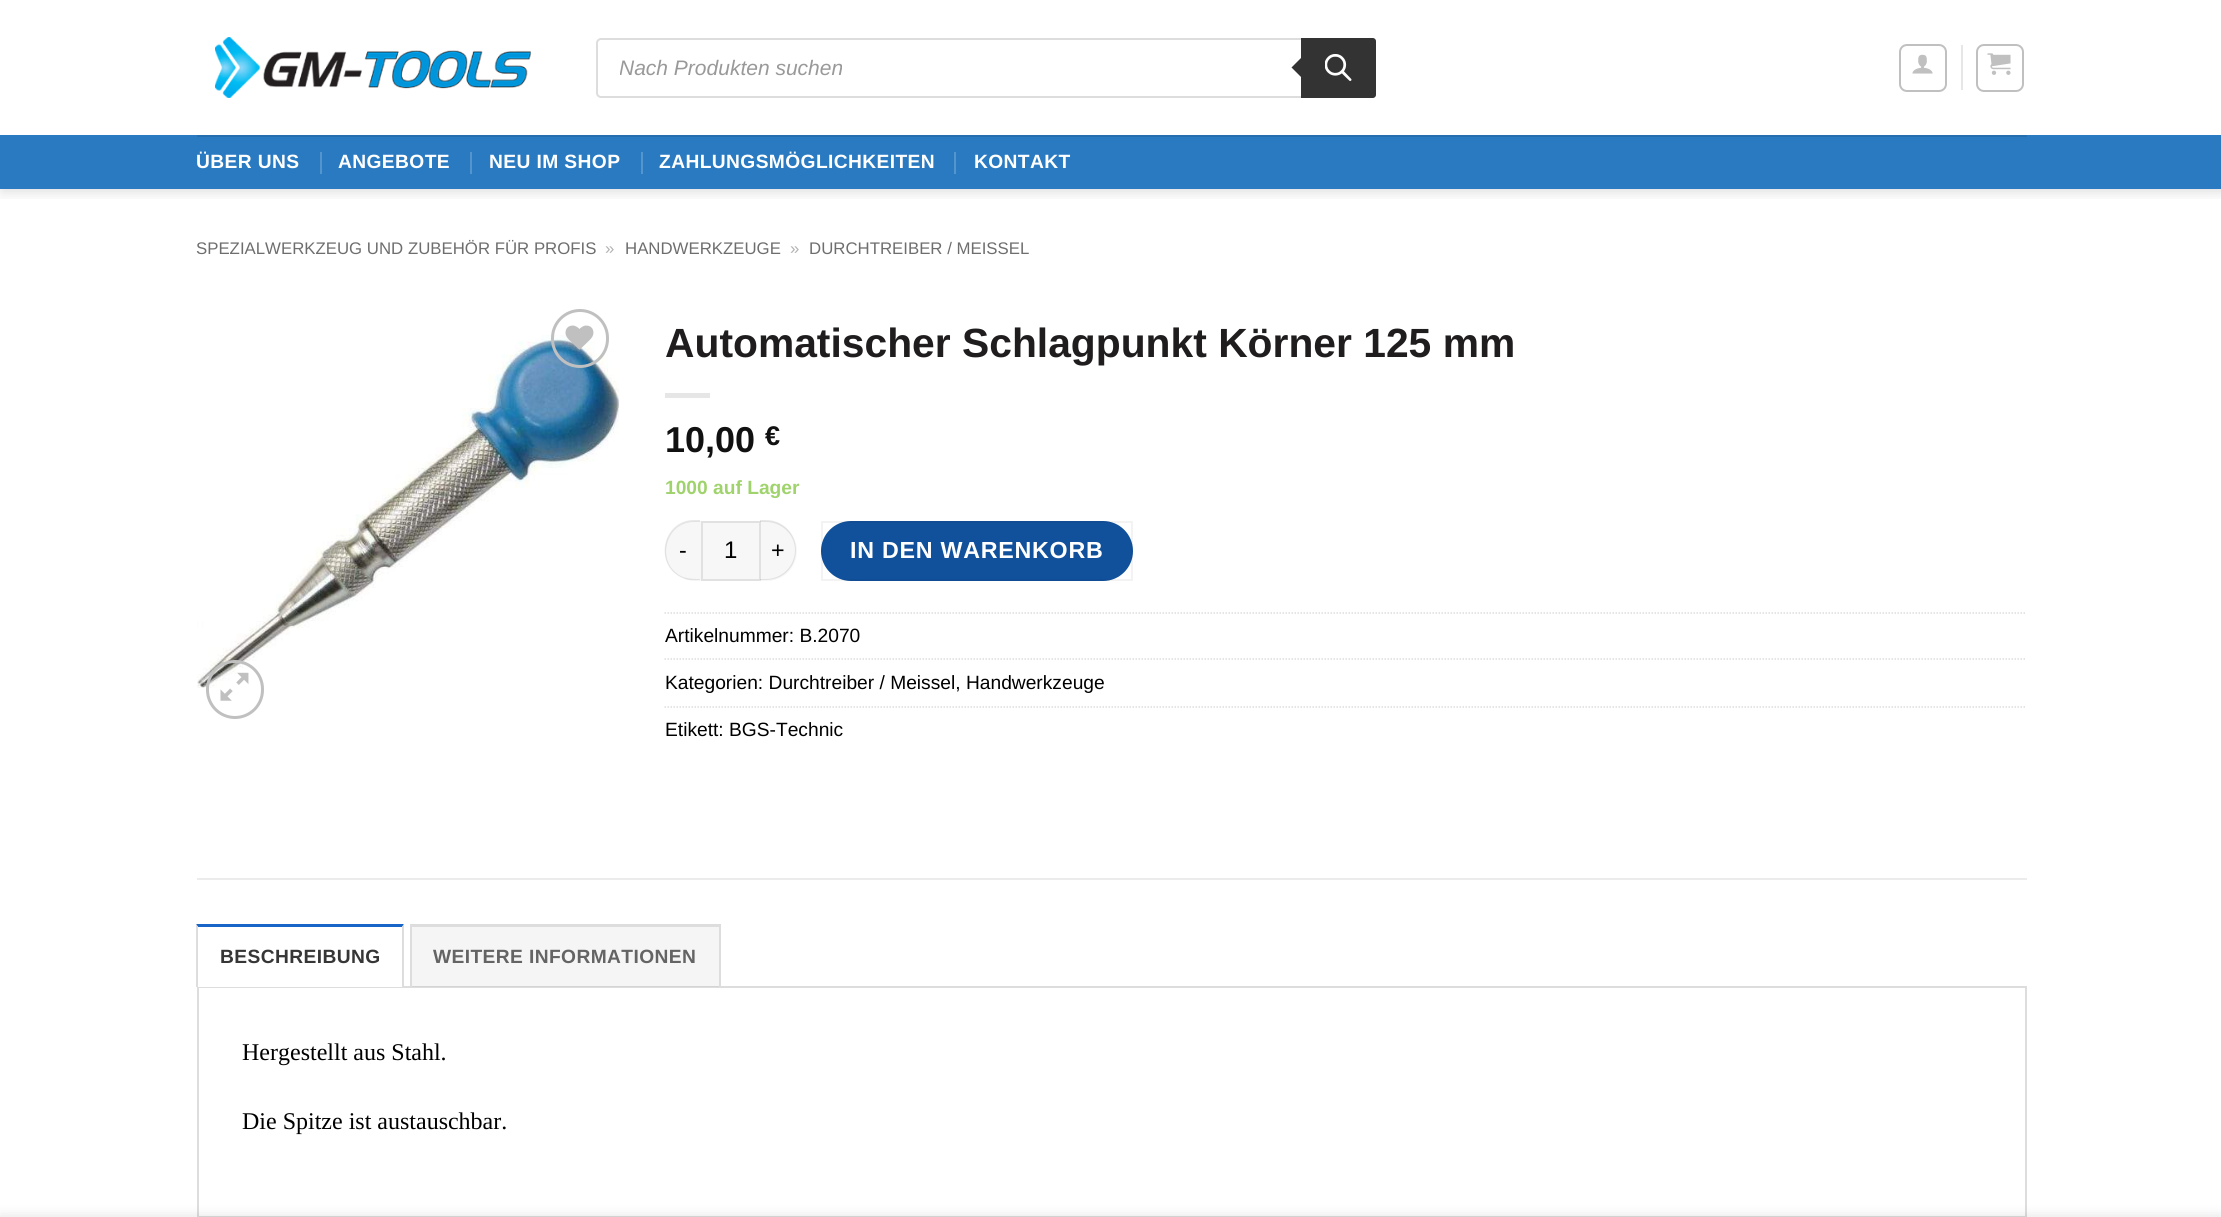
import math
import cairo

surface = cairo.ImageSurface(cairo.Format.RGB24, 2221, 1217)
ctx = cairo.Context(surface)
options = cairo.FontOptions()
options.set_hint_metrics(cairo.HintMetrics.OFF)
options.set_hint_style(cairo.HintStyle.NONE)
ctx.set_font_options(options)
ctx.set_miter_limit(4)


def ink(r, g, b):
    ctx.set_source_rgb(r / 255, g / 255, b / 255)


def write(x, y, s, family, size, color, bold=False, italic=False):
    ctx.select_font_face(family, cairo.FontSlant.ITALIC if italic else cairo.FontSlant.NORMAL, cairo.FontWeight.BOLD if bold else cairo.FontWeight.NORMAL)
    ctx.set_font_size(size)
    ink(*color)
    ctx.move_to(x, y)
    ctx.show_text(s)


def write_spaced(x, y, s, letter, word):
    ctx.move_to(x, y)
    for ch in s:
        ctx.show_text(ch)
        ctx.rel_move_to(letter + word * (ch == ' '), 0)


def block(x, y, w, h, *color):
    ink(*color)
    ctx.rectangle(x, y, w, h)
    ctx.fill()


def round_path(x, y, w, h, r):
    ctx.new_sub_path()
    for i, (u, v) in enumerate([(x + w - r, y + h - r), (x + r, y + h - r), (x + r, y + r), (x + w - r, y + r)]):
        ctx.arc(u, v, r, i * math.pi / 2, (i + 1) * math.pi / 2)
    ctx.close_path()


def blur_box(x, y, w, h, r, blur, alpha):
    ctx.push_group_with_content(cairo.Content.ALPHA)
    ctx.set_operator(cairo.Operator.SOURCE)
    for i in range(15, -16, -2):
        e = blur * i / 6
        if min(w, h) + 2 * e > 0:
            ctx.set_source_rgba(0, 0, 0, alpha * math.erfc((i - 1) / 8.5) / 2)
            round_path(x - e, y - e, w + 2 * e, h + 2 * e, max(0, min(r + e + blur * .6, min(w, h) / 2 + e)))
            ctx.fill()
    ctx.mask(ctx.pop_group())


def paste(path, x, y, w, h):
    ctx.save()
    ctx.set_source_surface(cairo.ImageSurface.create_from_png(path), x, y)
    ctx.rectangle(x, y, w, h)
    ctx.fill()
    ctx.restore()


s1 = dict(family="Liberation Sans", size=21, color=(153, 153, 153), italic=True)
s2 = dict(family="Liberation Sans", size=16.8, color=(110, 110, 110))
s3 = dict(family="Liberation Sans", size=16.8, color=(178, 178, 178))
s4 = dict(family="Liberation Sans", size=40.8, color=(31, 29, 29), bold=True)
s5 = dict(family="Liberation Sans", size=36, color=(17, 17, 17), bold=True)
s6 = dict(family="Liberation Sans", size=27, color=(17, 17, 17), bold=True)
s7 = dict(family="Liberation Sans", size=19.2, color=(160, 211, 109), bold=True)
s8 = dict(family="Liberation Sans", size=24, color=(0, 0, 0))
s9 = dict(family="Liberation Sans", size=19.2, color=(0, 0, 0))
s10 = dict(family="Liberation Serif", size=24, color=(0, 0, 0))

ink(255, 255, 255)
ctx.paint()
ctx.save()
ctx.rectangle(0, 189, 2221, 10)
ctx.clip()
ink(0, 0, 0)
blur_box(2, 2, 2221, 189, 0, 7.5, 0.15)
ctx.restore()
paste("pic1.png", 215, 37, 316, 61)
round_path(597, 39, 778, 58, 4)
ink(221, 221, 221)
ctx.stroke()
ctx.save()
ctx.rectangle(620, 56, 732, 24)
ctx.clip()
write(619, 75, "Nach Produkten suchen", **s1)
ctx.restore()
ink(51, 51, 51)
ctx.new_path()
ctx.move_to(1301, 38)
ctx.line_to(1373, 38)
ctx.curve_to(1374.5, 38, 1376, 39.5, 1376, 41)
ctx.line_to(1376, 95)
ctx.curve_to(1376, 96.5, 1374.5, 98, 1373, 98)
ctx.line_to(1301, 98)
ctx.close_path()
ctx.fill()
ctx.new_path()
ctx.move_to(1303.5, 55.5)
ctx.line_to(1303.5, 79.5)
ctx.line_to(1291.5, 67.5)
ctx.close_path()
ctx.fill()
paste("pic2.png", 1325, 54, 27, 27)
round_path(1900, 45, 46, 46, 7)
ink(192, 192, 192)
ctx.stroke()
paste("pic3.png", 1912, 54, 21, 20)
block(1961, 45, 2, 45, 230, 230, 230)
round_path(1977, 45, 46, 46, 7)
ink(192, 192, 192)
ctx.stroke()
paste("pic4.png", 1987, 53, 24, 22)
block(0, 135, 2221, 54, 41, 122, 193)
block(197, 135, 1830, 2, 37, 110, 174)
ctx.select_font_face("Liberation Sans", cairo.FontSlant.NORMAL, cairo.FontWeight.BOLD)
ctx.set_font_size(19.2)
ink(255, 255, 255)
write_spaced(196, 168, "ÜBER UNS", 0.4, 0)
block(320, 152, 2, 22, 84, 149, 205)
ink(255, 255, 255)
write_spaced(338, 168, "ANGEBOTE", 0.4, 0)
block(470, 152, 2, 22, 84, 149, 205)
ink(255, 255, 255)
write_spaced(489, 168, "NEU IM SHOP", 0.4, 0)
block(641, 152, 2, 22, 84, 149, 205)
ink(255, 255, 255)
write_spaced(659, 168, "ZAHLUNGSMÖGLICHKEITEN", 0.4, 0)
block(954, 152, 2, 22, 84, 149, 205)
ink(255, 255, 255)
write_spaced(974, 168, "KONTAKT", 0.4, 0)
write(196, 254, "SPEZIALWERKZEUG UND ZUBEHÖR FÜR PROFIS", **s2)
write(605, 254, "»", **s3)
write(625, 254, "HANDWERKZEUGE", **s2)
write(790, 254, "»", **s3)
write(809, 254, "DURCHTREIBER / MEISSEL", **s2)
paste("pic6.png", 197, 335, 423, 353)
round_path(552.5, 310.5, 55, 56, 27.5)
ink(192, 192, 192)
ctx.set_line_width(3)
ctx.stroke()
paste("pic5.png", 565, 325, 29, 25)
round_path(207.5, 661.5, 55, 56, 27.5)
ctx.stroke()
paste("pic7.png", 220, 672, 29, 29)
write(665, 357, "Automatischer Schlagpunkt Körner 125 mm", **s4)
block(665, 393, 45, 5, 230, 230, 230)
write(665, 452, "10,00", **s5)
write(765, 445, "€", **s6)
write(665, 494, "1000 auf Lager", **s7)
ink(247, 247, 247)
ctx.new_path()
ctx.move_to(695, 521)
ctx.line_to(701, 521)
ctx.line_to(701, 581)
ctx.line_to(695, 581)
ctx.curve_to(678.5, 581, 665, 567.5, 665, 551)
ctx.curve_to(665, 534.5, 678.5, 521, 695, 521)
ctx.close_path()
ctx.fill()
ctx.set_source_rgba(0, 0, 0, 0.09)
ctx.set_fill_rule(cairo.FillRule.EVEN_ODD)
ctx.new_path()
ctx.move_to(694, 520)
ctx.line_to(700, 520)
ctx.line_to(700, 580)
ctx.curve_to(694, 580, 689, 581, 683, 578)
ctx.curve_to(653, 566, 662, 520, 694, 520)
ctx.close_path()
ctx.move_to(694, 522)
ctx.line_to(700, 522)
ctx.line_to(700, 579)
ctx.curve_to(695, 579, 689, 579, 683, 577)
ctx.curve_to(655, 565, 664, 522, 694, 522)
ctx.close_path()
ctx.fill()
ctx.select_font_face("Liberation Sans")
ctx.set_font_size(23.25)
ink(0, 0, 0)
write_spaced(679, 558, "-", 0.75, 0)
ink(247, 247, 247)
ctx.rectangle(702, 522, 58, 58)
ctx.fill_preserve()
ink(225, 225, 225)
ctx.set_line_width(2)
ctx.stroke()
write(724, 558, "1", **s8)
ink(247, 247, 247)
ctx.new_path()
ctx.move_to(761, 521)
ctx.line_to(767, 521)
ctx.curve_to(783.5, 521, 797, 534.5, 797, 551)
ctx.curve_to(797, 567.5, 783.5, 581, 767, 581)
ctx.line_to(761, 581)
ctx.close_path()
ctx.fill()
ctx.set_source_rgba(0, 0, 0, 0.09)
ctx.new_path()
ctx.move_to(760, 520)
ctx.line_to(766, 520)
ctx.curve_to(783, 520, 796, 534, 796, 550)
ctx.curve_to(796, 567, 783, 580, 766, 580)
ctx.line_to(760, 580)
ctx.close_path()
ctx.move_to(760, 522)
ctx.line_to(766, 522)
ctx.curve_to(782, 522, 795, 535, 795, 550)
ctx.curve_to(795, 566, 782, 579, 766, 579)
ctx.line_to(760, 579)
ctx.close_path()
ctx.fill()
ctx.set_font_size(23.25)
ink(0, 0, 0)
write_spaced(771, 558, "+", 0.75, 0)
ink(17, 81, 155)
round_path(821, 521, 312, 60, 30)
ctx.fill()
ctx.rectangle(822, 522, 310, 58)
ctx.set_source_rgba(0, 0, 0, 0.05)
ctx.stroke()
ctx.select_font_face("Liberation Sans", cairo.FontSlant.NORMAL, cairo.FontWeight.BOLD)
ink(255, 255, 255)
write_spaced(850, 558, "IN DEN WARENKORB", 0.75, 0)
ctx.new_path()
ctx.move_to(664.5, 613)
ctx.line_to(2026.5, 613)
ink(221, 221, 221)
ctx.set_line_width(1.5)
ctx.set_dash([1.5, 1.5])
ctx.stroke()
write(665, 642, "Artikelnummer: B.2070", **s9)
ctx.new_path()
ctx.move_to(664.5, 659)
ctx.line_to(2026.5, 659)
ink(221, 221, 221)
ctx.stroke()
write(665, 689, "Kategorien: Durchtreiber / Meissel, Handwerkzeuge", **s9)
ctx.new_path()
ctx.move_to(664.5, 707)
ctx.line_to(2026.5, 707)
ink(221, 221, 221)
ctx.stroke()
write(665, 736, "Etikett: BGS-Technic", **s9)
block(197, 878, 1830, 2, 236, 236, 236)
ctx.rectangle(198, 987, 1828, 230)
ink(221, 221, 221)
ctx.set_line_width(2)
ctx.set_dash([])
ctx.stroke()
block(197, 986, 207, 1, 255, 255, 255)
ink(24, 100, 199)
ctx.set_fill_rule(cairo.FillRule.WINDING)
ctx.new_path()
ctx.move_to(196, 924)
ctx.line_to(404, 924)
ctx.line_to(402, 927)
ctx.line_to(198, 927)
ctx.close_path()
ctx.fill()
ink(221, 221, 221)
ctx.new_path()
ctx.move_to(404, 924)
ctx.line_to(404, 987)
ctx.line_to(402, 987)
ctx.line_to(402, 927)
ctx.close_path()
ctx.fill()
ctx.new_path()
ctx.move_to(196, 987)
ctx.line_to(196, 924)
ctx.line_to(198, 927)
ctx.line_to(198, 987)
ctx.close_path()
ctx.fill()
ctx.select_font_face("Liberation Sans", cairo.FontSlant.NORMAL, cairo.FontWeight.BOLD)
ink(54, 54, 54)
write_spaced(220, 963, "BESCHREIBUNG", 0.4, 0)
ctx.set_source_rgba(0, 0, 0, 0.04)
ctx.rectangle(412, 927, 307, 60)
ctx.fill()
block(410, 924, 310, 3, 221, 221, 221)
block(719, 924, 2, 63, 221, 221, 221)
block(410, 924, 2, 63, 221, 221, 221)
ink(100, 100, 100)
write_spaced(433, 963, "WEITERE INFORMATIONEN", 0.4, 0)
write(242, 1060, "Hergestellt aus Stahl.", **s10)
write(242, 1129, "Die Spitze ist austauschbar.", **s10)
ink(0, 0, 0)
blur_box(0, 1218, 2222, 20, 0, 7, 0.14)
surface.write_to_png("screenshot.png")
